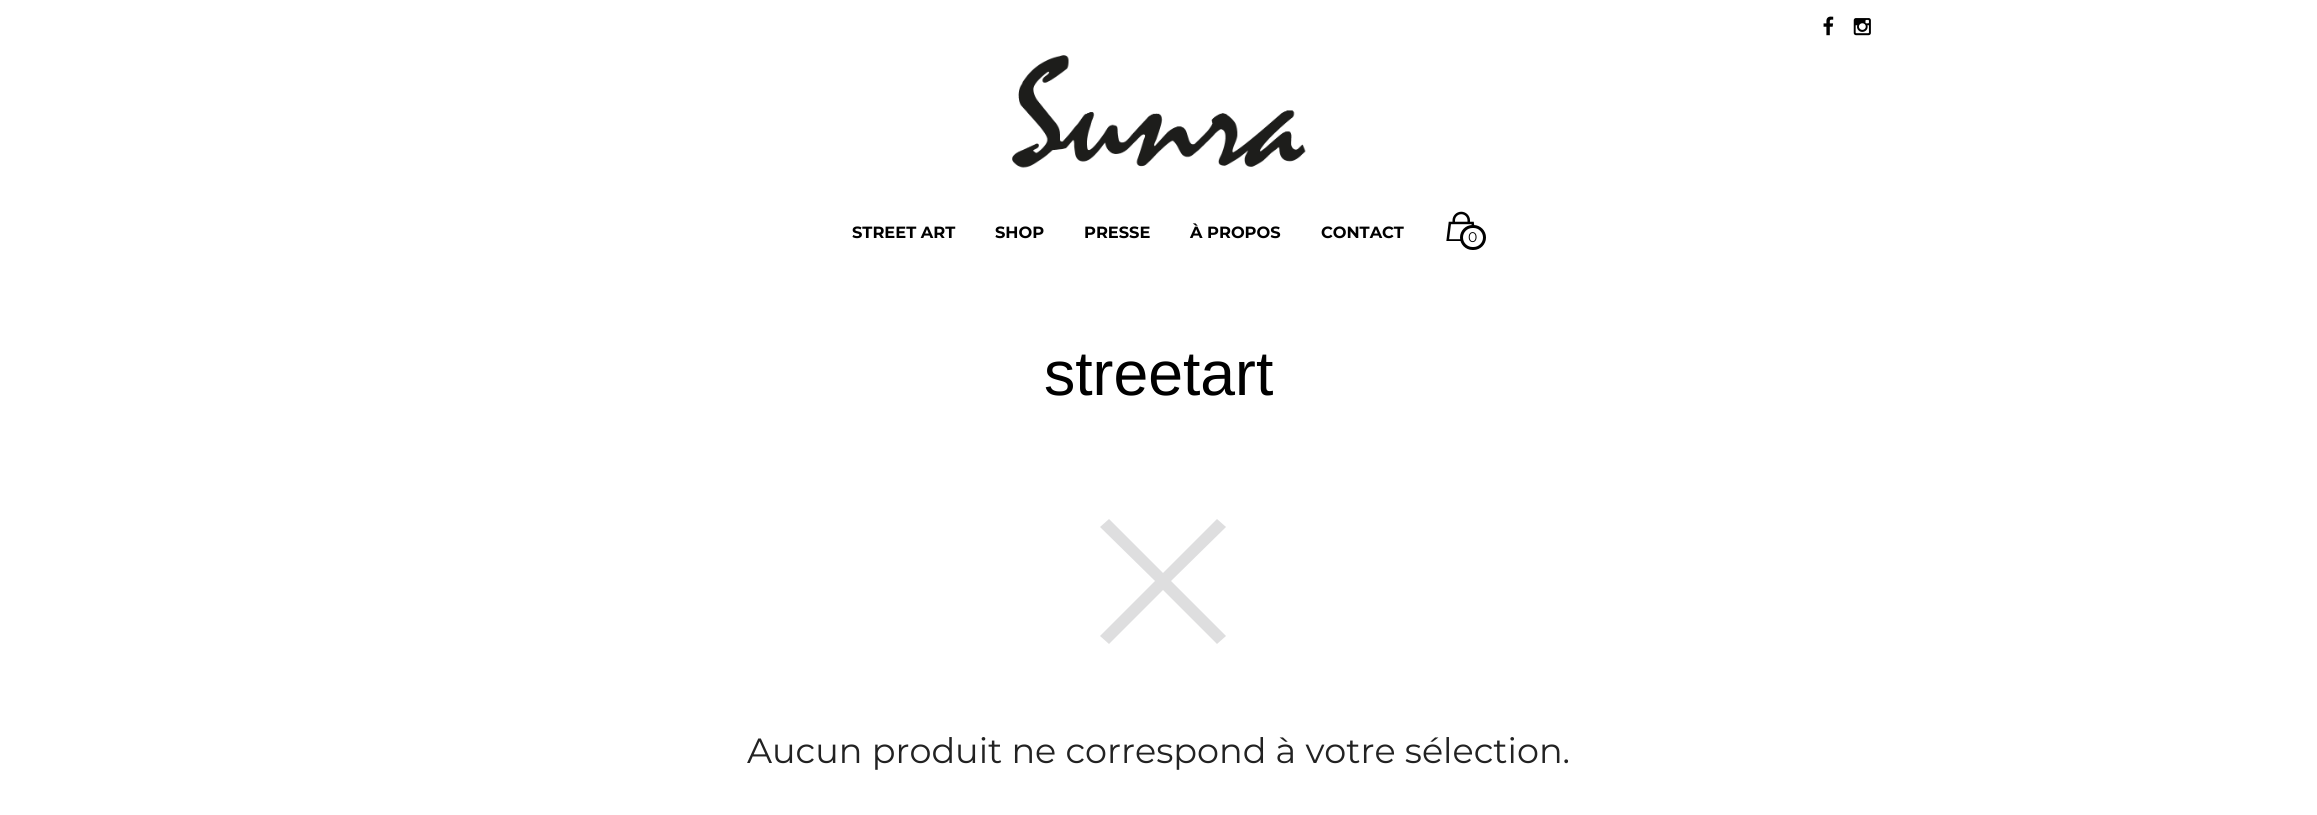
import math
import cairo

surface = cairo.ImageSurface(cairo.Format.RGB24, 2317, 815)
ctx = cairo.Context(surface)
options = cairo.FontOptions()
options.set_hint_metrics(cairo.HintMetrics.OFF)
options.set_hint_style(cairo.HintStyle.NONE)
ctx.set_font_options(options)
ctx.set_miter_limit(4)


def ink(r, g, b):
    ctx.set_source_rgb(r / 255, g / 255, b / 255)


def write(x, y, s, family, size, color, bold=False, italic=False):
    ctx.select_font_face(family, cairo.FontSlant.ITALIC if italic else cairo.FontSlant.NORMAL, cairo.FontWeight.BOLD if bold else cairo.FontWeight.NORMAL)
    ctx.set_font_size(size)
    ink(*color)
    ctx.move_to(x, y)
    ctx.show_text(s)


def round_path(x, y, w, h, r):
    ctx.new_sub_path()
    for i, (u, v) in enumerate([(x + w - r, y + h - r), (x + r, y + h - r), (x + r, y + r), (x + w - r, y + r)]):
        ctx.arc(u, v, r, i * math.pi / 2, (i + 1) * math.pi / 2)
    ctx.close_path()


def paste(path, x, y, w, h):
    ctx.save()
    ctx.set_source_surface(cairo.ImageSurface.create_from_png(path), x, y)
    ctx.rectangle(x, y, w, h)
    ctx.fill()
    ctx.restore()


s1 = dict(family="Montserrat", size=16.25, color=(0, 0, 0), bold=True)
s2 = dict(family="Montserrat", size=14, color=(0, 0, 0))
s3 = dict(family="Arimo", size=62.5, color=(0, 0, 0))
s4 = dict(family="Montserrat", size=35, color=(34, 34, 34))

ink(255, 255, 255)
ctx.paint()
paste("pic1.png", 1823, 16, 11, 20)
paste("pic2.png", 1853, 18, 18, 18)
paste("pic3.png", 1012, 55, 294, 113)
write(852, 238, "STREET ART", **s1)
write(995, 238, "SHOP", **s1)
write(1084, 238, "PRESSE", **s1)
write(1190, 238, "À PROPOS", **s1)
write(1321, 238, "CONTACT", **s1)
paste("pic4.png", 1446, 211, 29, 30)
ink(255, 255, 255)
round_path(1461.5, 226.5, 23, 22, 11)
ctx.fill_preserve()
ink(0, 0, 0)
ctx.set_line_width(3)
ctx.stroke()
write(1468, 242, "0", **s2)
write(1044, 395, "streetart", **s3)
ink(222, 222, 223)
ctx.new_path()
ctx.move_to(1226, 527)
ctx.line_to(1217, 519)
ctx.line_to(1163, 573)
ctx.line_to(1109, 519)
ctx.line_to(1100, 527)
ctx.line_to(1155, 581)
ctx.line_to(1100, 636)
ctx.line_to(1109, 644)
ctx.line_to(1163, 590)
ctx.line_to(1217, 644)
ctx.line_to(1226, 636)
ctx.line_to(1171, 581)
ctx.close_path()
ctx.fill()
write(747, 763, "Aucun produit ne correspond à votre sélection.", **s4)
surface.write_to_png("screenshot.png")
